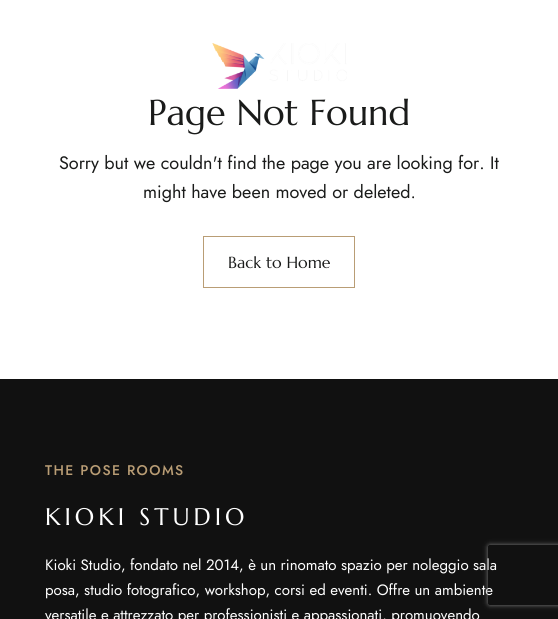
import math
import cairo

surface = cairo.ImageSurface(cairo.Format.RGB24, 558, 619)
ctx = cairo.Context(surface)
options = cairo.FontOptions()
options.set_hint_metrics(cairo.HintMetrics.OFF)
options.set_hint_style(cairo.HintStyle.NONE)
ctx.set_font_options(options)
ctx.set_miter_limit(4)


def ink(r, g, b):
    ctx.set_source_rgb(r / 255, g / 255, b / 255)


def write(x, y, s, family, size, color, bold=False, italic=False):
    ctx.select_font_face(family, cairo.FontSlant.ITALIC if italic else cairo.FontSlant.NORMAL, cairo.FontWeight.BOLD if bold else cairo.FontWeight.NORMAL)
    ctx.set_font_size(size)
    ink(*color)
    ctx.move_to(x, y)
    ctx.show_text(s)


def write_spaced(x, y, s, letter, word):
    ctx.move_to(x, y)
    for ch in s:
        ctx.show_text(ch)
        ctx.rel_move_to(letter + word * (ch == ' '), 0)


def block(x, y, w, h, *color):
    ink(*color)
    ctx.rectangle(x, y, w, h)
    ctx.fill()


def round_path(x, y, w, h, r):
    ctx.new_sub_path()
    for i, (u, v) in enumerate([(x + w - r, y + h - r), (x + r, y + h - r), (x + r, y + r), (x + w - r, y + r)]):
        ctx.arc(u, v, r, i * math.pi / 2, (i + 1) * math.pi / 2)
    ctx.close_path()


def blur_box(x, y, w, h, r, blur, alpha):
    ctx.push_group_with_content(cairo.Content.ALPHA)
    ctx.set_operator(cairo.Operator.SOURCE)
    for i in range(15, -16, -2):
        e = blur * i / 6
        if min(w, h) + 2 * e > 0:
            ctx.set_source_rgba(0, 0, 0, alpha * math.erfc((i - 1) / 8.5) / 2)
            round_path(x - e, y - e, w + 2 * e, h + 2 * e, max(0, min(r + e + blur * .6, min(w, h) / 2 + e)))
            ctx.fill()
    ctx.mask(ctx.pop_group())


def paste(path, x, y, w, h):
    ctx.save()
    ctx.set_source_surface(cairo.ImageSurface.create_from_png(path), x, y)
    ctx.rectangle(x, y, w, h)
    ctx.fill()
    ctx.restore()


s1 = dict(family="Marcellus", size=36, color=(26, 27, 26))
s2 = dict(family="Jost", size=18, color=(26, 27, 26))
s3 = dict(family="Marcellus", size=16, color=(26, 27, 26))
s4 = dict(family="Jost", size=15, color=(255, 255, 255))

ink(255, 255, 255)
ctx.paint()
paste("pic1.png", 212, 43, 135, 46)
write(148, 125, "Page Not Found", **s1)
write(59, 169, "Sorry but we couldn't find the page you are looking for. It", **s2)
write(143, 198, "might have been moved or deleted.", **s2)
ctx.rectangle(203.5, 236.5, 151, 51)
ink(185, 157, 117)
ctx.set_line_width(1)
ctx.stroke()
write(228, 268, "Back to Home", **s3)
block(0, 379, 558, 240, 17, 17, 17)
ctx.select_font_face("Jost Medium")
ctx.set_font_size(14)
ink(185, 157, 117)
write_spaced(45, 475, "THE POSE ROOMS", 1.4, 0)
ctx.select_font_face("Marcellus")
ctx.set_font_size(24)
ink(255, 255, 255)
write_spaced(45, 525, "KIOKI STUDIO", 4, 0)
write(45, 570, "Kioki Studio, fondato nel 2014, è un rinomato spazio per noleggio sala", **s4)
write(45, 595, "posa, studio fotografico, workshop, corsi ed eventi. Offre un ambiente", **s4)
write(45, 620, "versatile e attrezzato per professionisti e appassionati, promuovendo", **s4)
ctx.save()
ctx.set_fill_rule(cairo.FillRule.EVEN_ODD)
ctx.new_path()
ctx.move_to(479, 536)
ctx.line_to(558, 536)
ctx.line_to(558, 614)
ctx.line_to(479, 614)
ctx.close_path()
ctx.move_to(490, 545)
ctx.line_to(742, 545)
ctx.curve_to(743, 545, 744, 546, 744, 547)
ctx.line_to(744, 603)
ctx.curve_to(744, 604, 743, 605, 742, 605)
ctx.line_to(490, 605)
ctx.curve_to(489, 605, 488, 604, 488, 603)
ctx.line_to(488, 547)
ctx.curve_to(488, 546, 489, 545, 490, 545)
ctx.close_path()
ctx.clip()
ink(128, 128, 128)
blur_box(488, 545, 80, 60, 2, 2.5, 1)
ctx.restore()
surface.write_to_png("screenshot.png")
